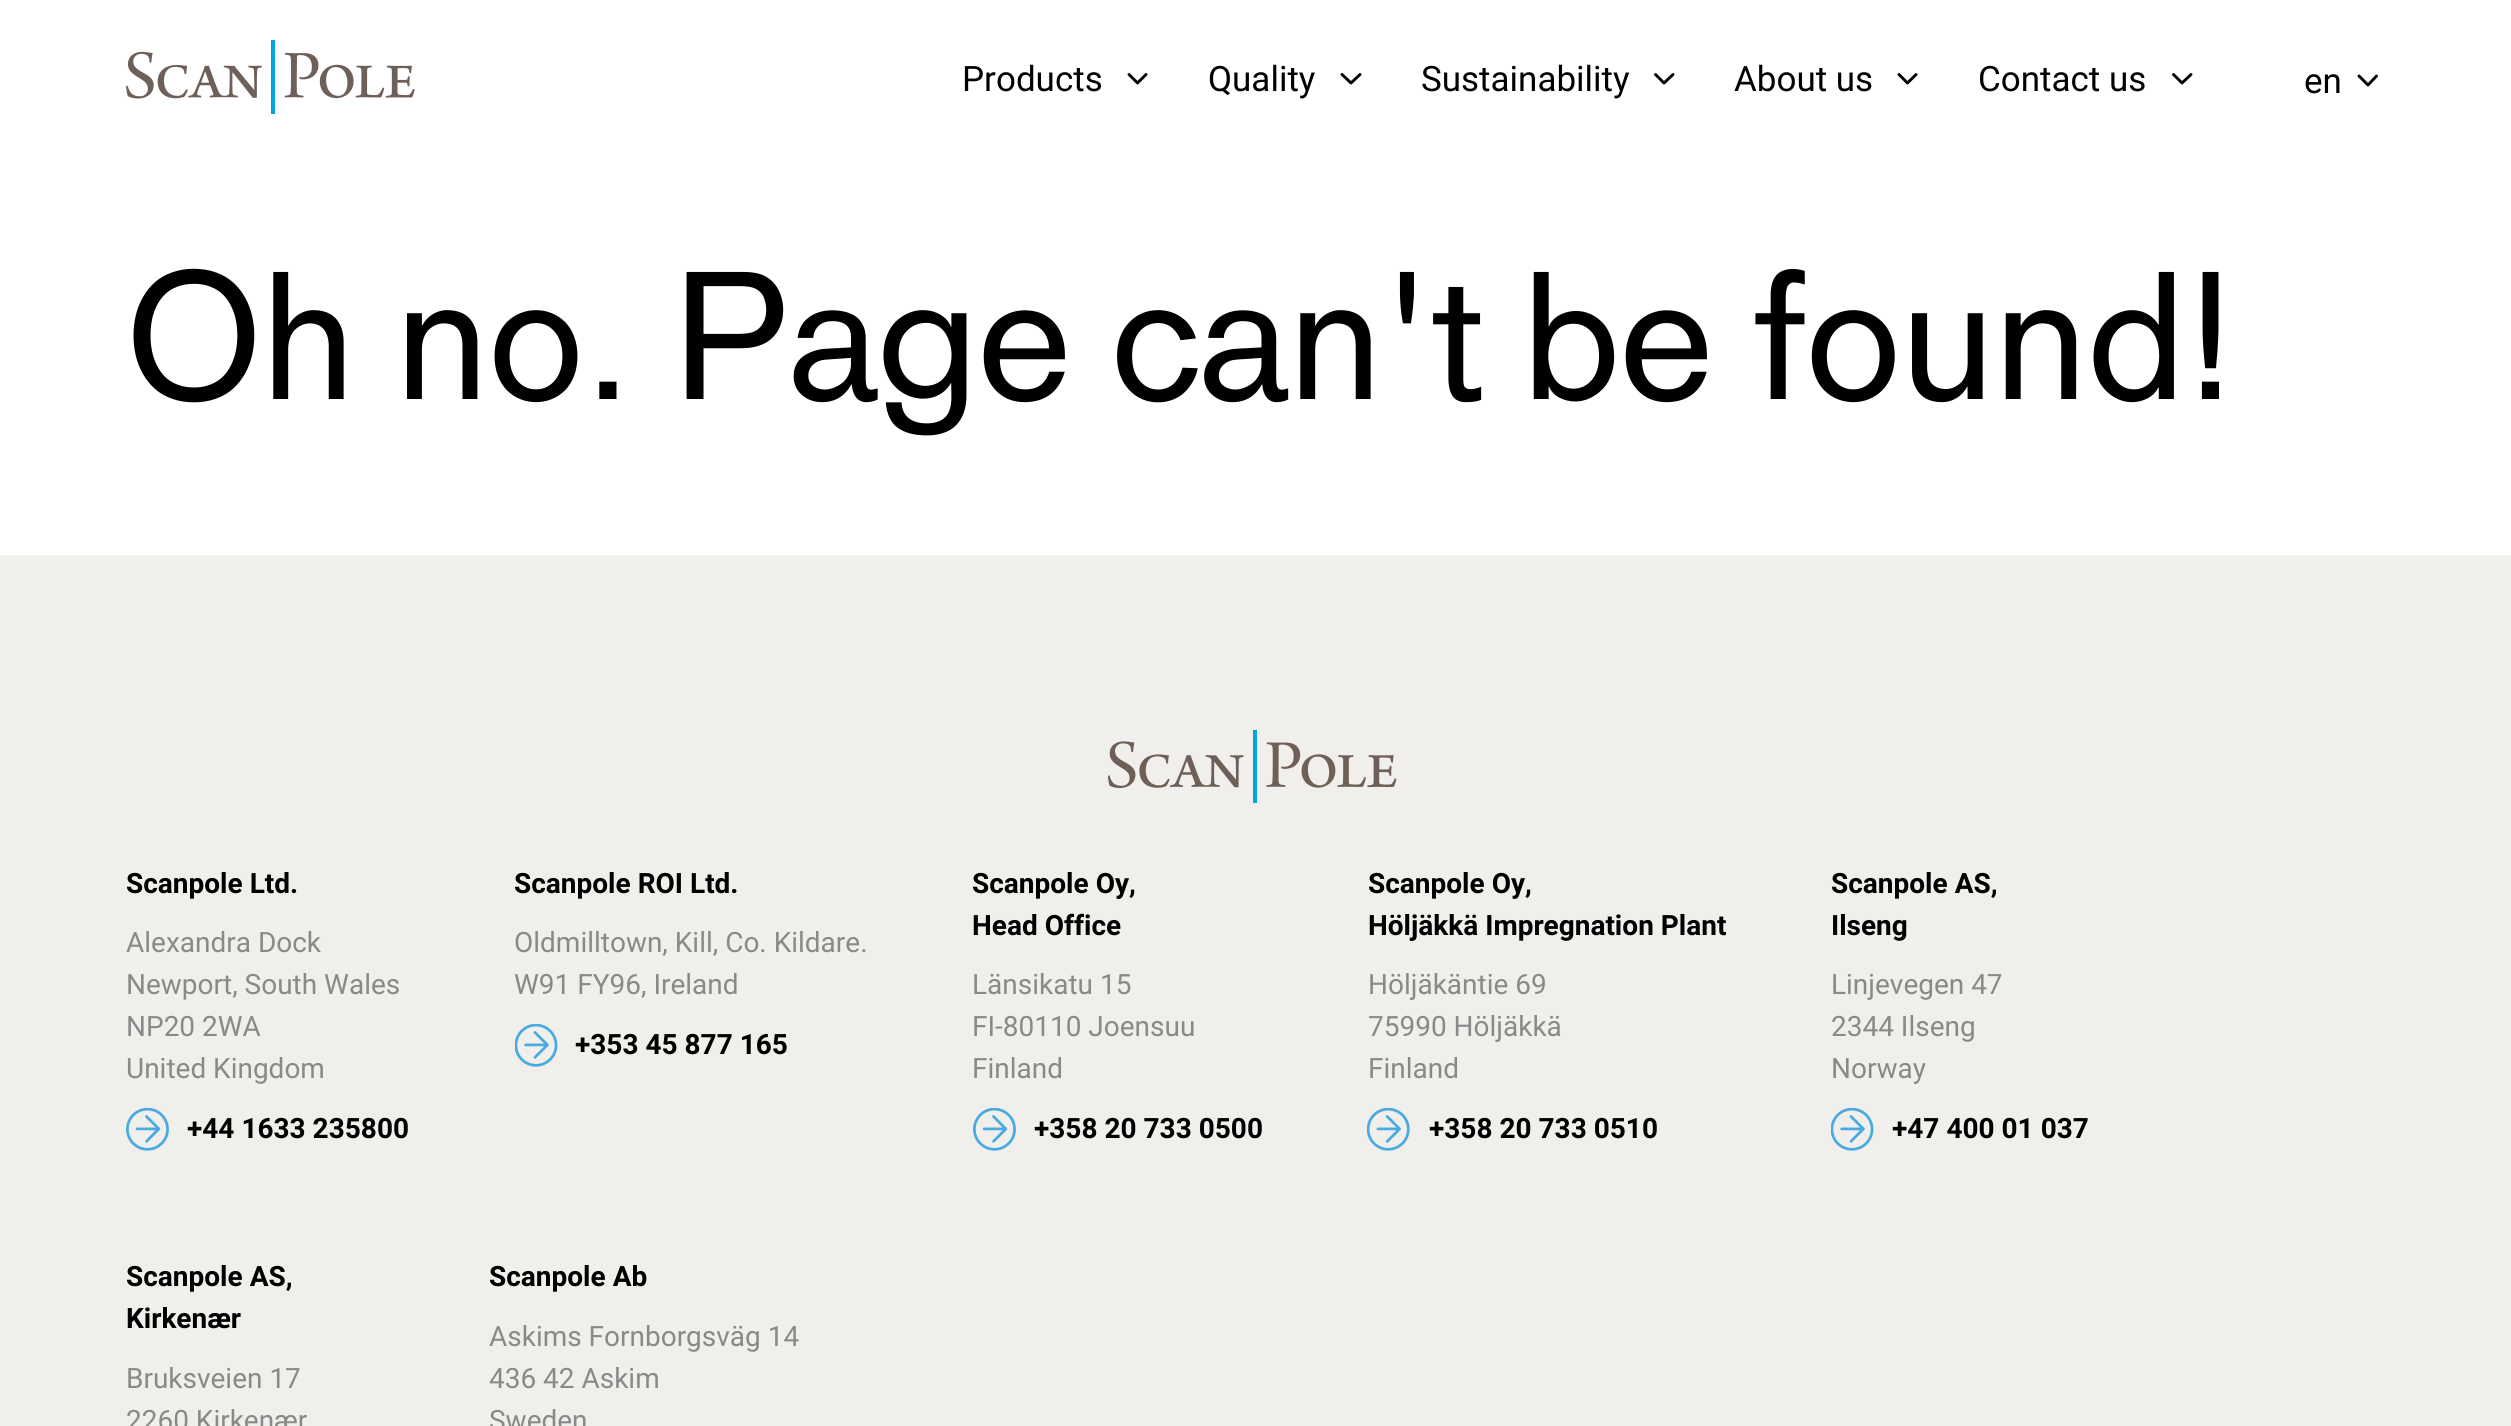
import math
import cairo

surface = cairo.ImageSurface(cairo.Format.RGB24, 2511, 1426)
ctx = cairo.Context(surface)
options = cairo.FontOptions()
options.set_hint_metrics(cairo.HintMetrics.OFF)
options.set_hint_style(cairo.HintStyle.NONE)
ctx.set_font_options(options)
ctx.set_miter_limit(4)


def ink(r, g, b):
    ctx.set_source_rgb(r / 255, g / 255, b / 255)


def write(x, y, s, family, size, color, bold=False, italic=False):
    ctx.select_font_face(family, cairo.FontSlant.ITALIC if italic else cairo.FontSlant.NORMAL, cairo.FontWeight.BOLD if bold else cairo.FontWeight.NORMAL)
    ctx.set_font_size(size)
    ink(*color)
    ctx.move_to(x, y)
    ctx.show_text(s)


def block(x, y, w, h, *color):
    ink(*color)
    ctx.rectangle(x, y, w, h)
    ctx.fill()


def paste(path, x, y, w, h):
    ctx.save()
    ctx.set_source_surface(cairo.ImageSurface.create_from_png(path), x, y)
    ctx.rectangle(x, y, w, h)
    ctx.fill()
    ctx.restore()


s1 = dict(family="Roboto", size=35, color=(0, 0, 0))
s2 = dict(family="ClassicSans", size=175, color=(0, 0, 0))
s3 = dict(family="Roboto", size=28, color=(0, 0, 0), bold=True)
s4 = dict(family="Roboto", size=28, color=(137, 137, 137))

ink(255, 255, 255)
ctx.paint()
paste("pic1.png", 126, 40, 289, 74)
write(962, 91, "Products", **s1)
ctx.new_path()
ctx.move_to(1129, 74.5)
ctx.line_to(1137.5, 83)
ctx.line_to(1146, 74.5)
ctx.set_line_width(2.9)
ctx.set_line_cap(cairo.LineCap.ROUND)
ctx.set_line_join(cairo.LineJoin.ROUND)
ctx.stroke()
write(1208, 91, "Quality", **s1)
ctx.new_path()
ctx.move_to(1342, 74.5)
ctx.line_to(1351, 83)
ctx.line_to(1360, 74.5)
ctx.stroke()
write(1421, 91, "Sustainability", **s1)
ctx.new_path()
ctx.move_to(1655.5, 74.5)
ctx.line_to(1664, 83)
ctx.line_to(1673, 74.5)
ctx.stroke()
write(1734, 91, "About us", **s1)
ctx.new_path()
ctx.move_to(1899, 74.5)
ctx.line_to(1907.5, 83)
ctx.line_to(1916, 74.5)
ctx.stroke()
write(1978, 91, "Contact us", **s1)
ctx.new_path()
ctx.move_to(2173.5, 74.5)
ctx.line_to(2182, 83)
ctx.line_to(2191, 74.5)
ctx.stroke()
write(2304, 93, "en", **s1)
ctx.new_path()
ctx.move_to(2359, 76)
ctx.line_to(2368, 85)
ctx.line_to(2376.5, 76)
ctx.stroke()
write(126, 399, "Oh no. Page can't be found!", **s2)
block(0, 555, 2511, 871, 241, 239, 235)
paste("pic2.png", 1108, 730, 289, 73)
write(126, 893, "Scanpole Ltd.", **s3)
write(126, 952, "Alexandra Dock", **s4)
write(126, 994, "Newport, South Wales", **s4)
write(126, 1036, "NP20 2WA", **s4)
write(126, 1078, "United Kingdom", **s4)
paste("pic3.png", 126, 1108, 43, 43)
write(187, 1138, "+44 1633 235800", **s3)
write(514, 893, "Scanpole ROI Ltd.", **s3)
write(514, 952, "Oldmilltown, Kill, Co. Kildare.", **s4)
write(514, 994, "W91 FY96, Ireland", **s4)
paste("pic4.png", 515, 1024, 43, 43)
write(575, 1054, "+353 45 877 165", **s3)
write(972, 893, "Scanpole Oy,", **s3)
write(972, 935, "Head Office", **s3)
write(972, 994, "Länsikatu 15", **s4)
write(972, 1036, "FI-80110 Joensuu", **s4)
write(972, 1078, "Finland", **s4)
paste("pic3.png", 973, 1108, 43, 43)
write(1034, 1138, "+358 20 733 0500", **s3)
write(1368, 893, "Scanpole Oy,", **s3)
write(1368, 935, "Höljäkkä Impregnation Plant", **s3)
write(1368, 994, "Höljäkäntie 69", **s4)
write(1368, 1036, "75990 Höljäkkä", **s4)
write(1368, 1078, "Finland", **s4)
paste("pic5.png", 1367, 1108, 43, 43)
write(1429, 1138, "+358 20 733 0510", **s3)
write(1831, 893, "Scanpole AS,", **s3)
write(1831, 935, "Ilseng", **s3)
write(1831, 994, "Linjevegen 47", **s4)
write(1831, 1036, "2344 Ilseng", **s4)
write(1831, 1078, "Norway", **s4)
paste("pic4.png", 1831, 1108, 43, 43)
write(1892, 1138, "+47 400 01 037", **s3)
write(126, 1286, "Scanpole AS,", **s3)
write(126, 1328, "Kirkenær", **s3)
write(126, 1388, "Bruksveien 17", **s4)
write(126, 1430, "2260 Kirkenær", **s4)
write(489, 1286, "Scanpole Ab", **s3)
write(489, 1346, "Askims Fornborgsväg 14", **s4)
write(489, 1388, "436 42 Askim", **s4)
write(489, 1430, "Sweden", **s4)
surface.write_to_png("screenshot.png")
